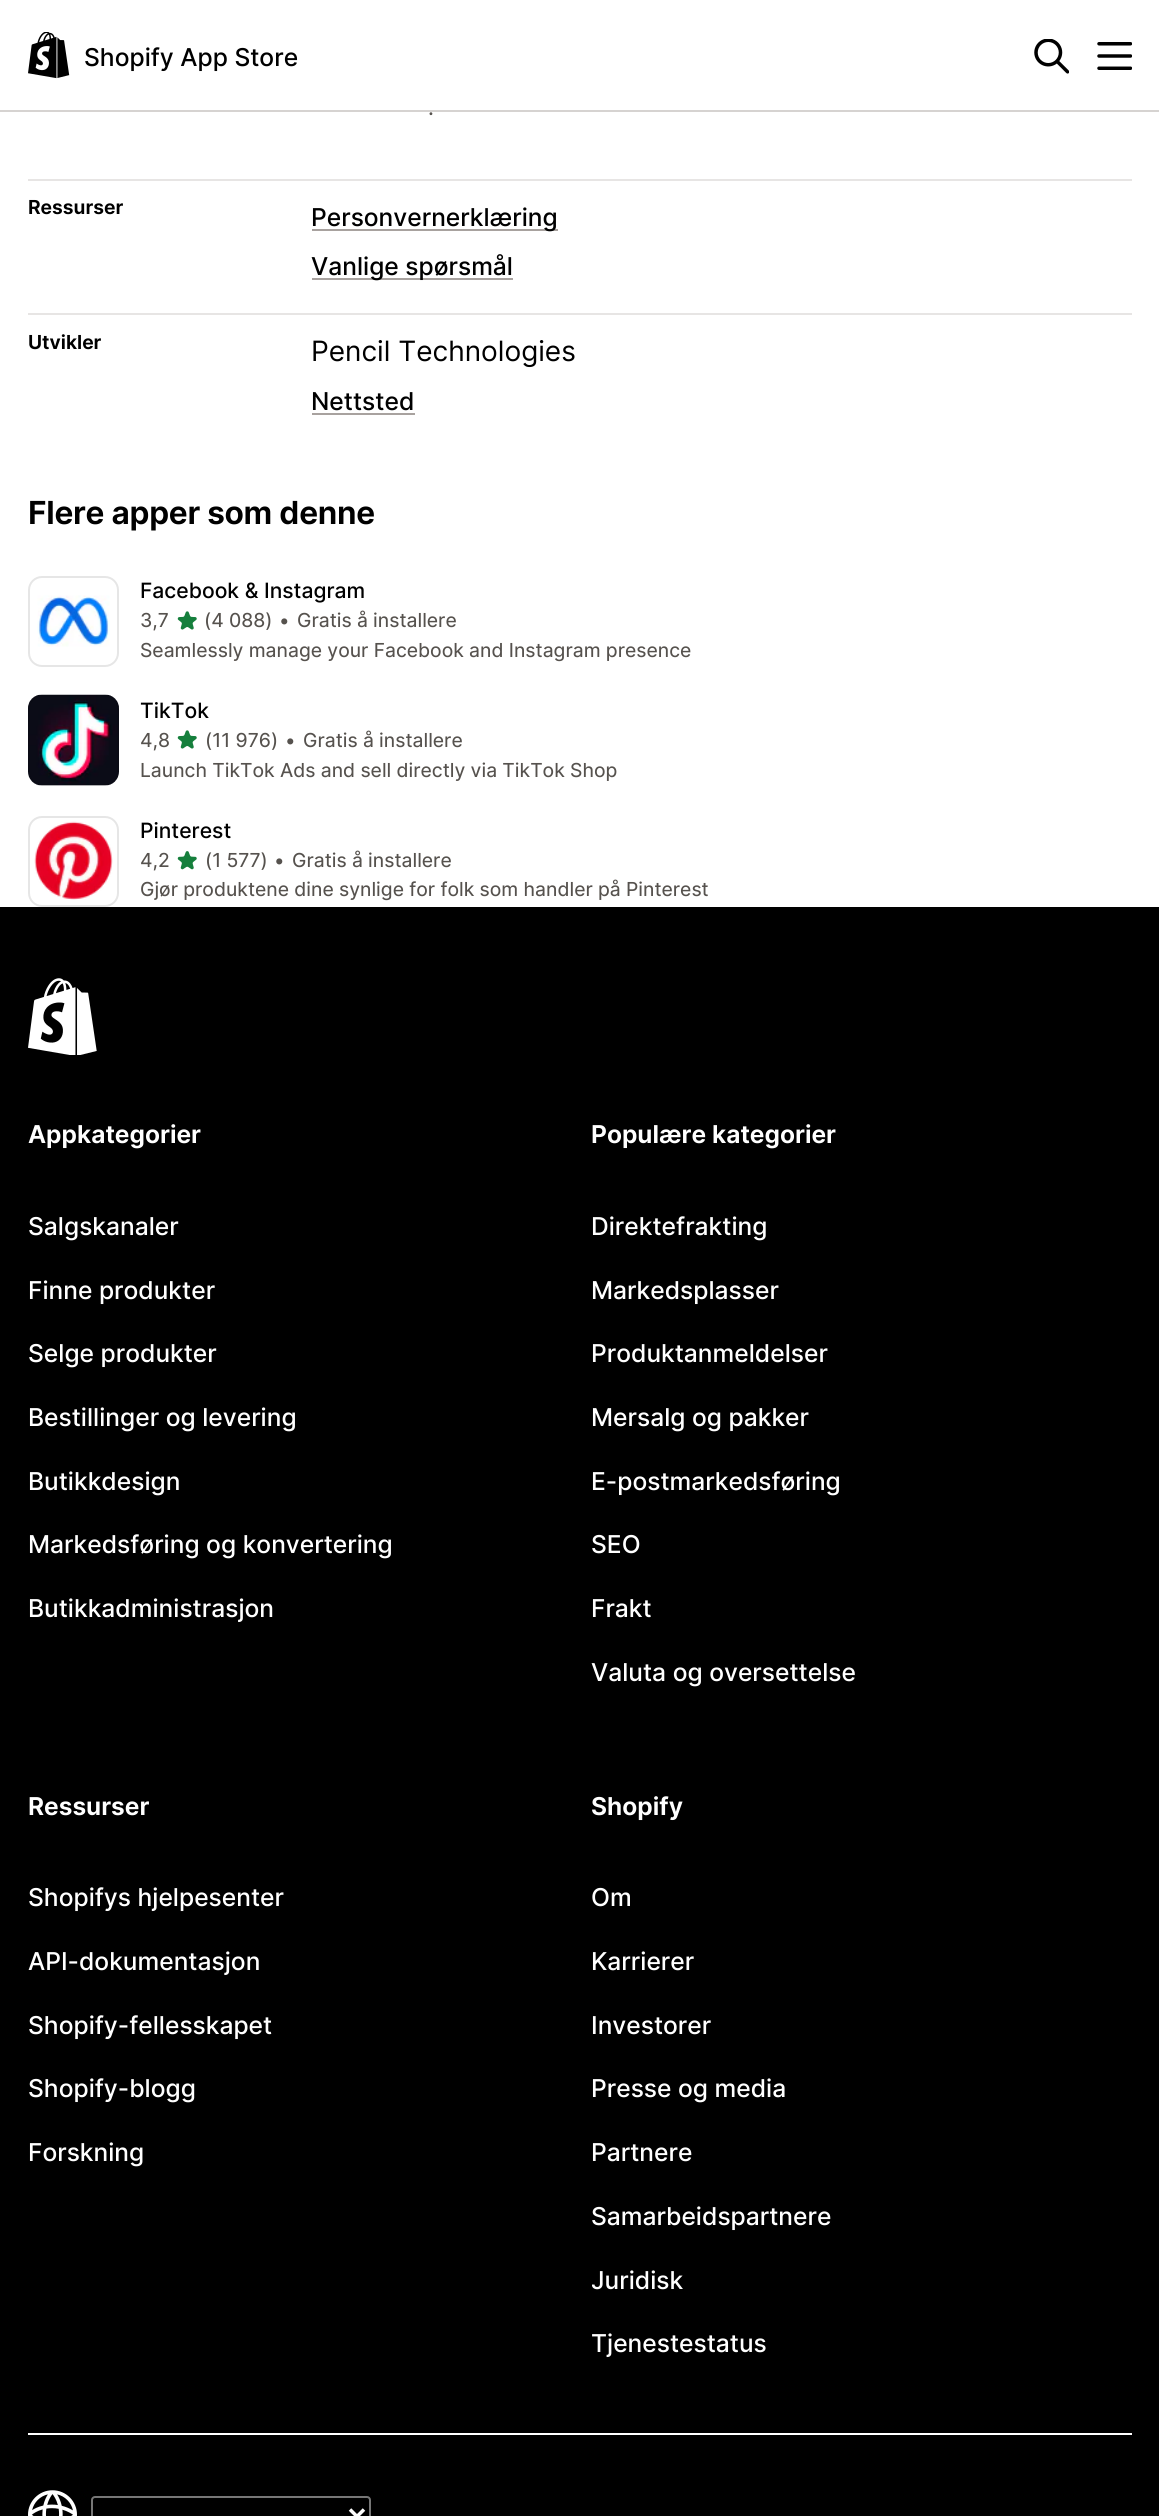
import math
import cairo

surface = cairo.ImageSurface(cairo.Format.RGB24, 1159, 2516)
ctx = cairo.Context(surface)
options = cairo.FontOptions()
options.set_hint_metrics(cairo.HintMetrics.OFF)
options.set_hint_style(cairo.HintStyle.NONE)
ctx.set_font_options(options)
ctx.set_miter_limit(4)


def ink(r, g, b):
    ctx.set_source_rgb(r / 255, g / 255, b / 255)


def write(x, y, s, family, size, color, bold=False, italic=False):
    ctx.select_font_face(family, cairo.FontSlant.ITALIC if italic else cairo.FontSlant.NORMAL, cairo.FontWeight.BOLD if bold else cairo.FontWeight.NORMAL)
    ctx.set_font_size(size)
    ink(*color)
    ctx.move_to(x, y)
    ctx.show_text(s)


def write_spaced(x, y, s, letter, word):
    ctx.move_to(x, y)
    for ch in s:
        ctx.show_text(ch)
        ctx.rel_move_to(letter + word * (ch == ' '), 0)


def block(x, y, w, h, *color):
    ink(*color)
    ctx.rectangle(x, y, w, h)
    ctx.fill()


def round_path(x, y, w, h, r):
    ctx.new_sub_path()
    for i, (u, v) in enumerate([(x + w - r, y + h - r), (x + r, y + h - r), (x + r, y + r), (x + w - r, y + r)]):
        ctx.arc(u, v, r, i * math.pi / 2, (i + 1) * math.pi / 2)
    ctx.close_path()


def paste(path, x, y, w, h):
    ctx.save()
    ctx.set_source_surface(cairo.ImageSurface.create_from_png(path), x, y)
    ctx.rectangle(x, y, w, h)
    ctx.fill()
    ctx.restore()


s1 = dict(family="Inter Medium", size=24.6, color=(0, 0, 0))
s2 = dict(family="Inter", size=21.1, color=(86, 82, 78))
s3 = dict(family="Inter SemiBold", size=19.3, color=(0, 0, 0))
s4 = dict(family="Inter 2", size=28, color=(0, 0, 0))
s5 = dict(family="Inter Medium", size=21.1, color=(0, 0, 0))
s6 = dict(family="Inter", size=19.3, color=(86, 82, 78))
s7 = dict(family="Inter SemiBold", size=24.6, color=(255, 255, 255))
s8 = dict(family="Inter Medium", size=24.6, color=(255, 255, 255))

ink(255, 255, 255)
ctx.paint()
block(0, 110, 1159, 2, 214, 211, 209)
paste("pic1.png", 28, 32, 42, 47)
write(84, 66, "Shopify App Store", **s1)
paste("pic2.png", 1034, 39, 35, 35)
paste("pic3.png", 1097, 42, 35, 28)
write(428, 115, ".", **s2)
block(28, 179, 1104, 2, 231, 229, 228)
write(28, 214, "Ressurser", **s3)
block(312, 229, 246, 2, 168, 162, 159)
write(311, 226, "Personvernerklæring", **s1)
block(312, 278, 201, 2, 168, 162, 159)
write(311, 275, "Vanlige spørsmål", **s1)
block(28, 313, 1104, 2, 231, 229, 228)
write(28, 349, "Utvikler", **s3)
write(311, 361, "Pencil Technologies", **s4)
write(311, 410, "Nettsted", **s1)
block(312, 413, 103, 2, 168, 162, 159)
ctx.select_font_face("Inter SemiBold")
ctx.set_font_size(31.75)
ink(0, 0, 0)
write_spaced(28, 524, "Flere apper som denne", -0.3, 0)
paste("pic4.png", 37, 595, 73, 52)
round_path(29, 577, 89, 89, 13)
ink(230, 230, 230)
ctx.stroke()
write(140, 598, "Facebook & Instagram", **s5)
write(140, 627, "3,7", **s6)
paste("pic5.png", 177, 611, 20, 19)
write(204, 627, "(4 088)", **s6)
write(279, 627, "•", **s6)
write(297, 627, "Gratis å installere", **s6)
write(140, 657, "Seamlessly manage your Facebook and Instagram presence", **s6)
paste("pic6.png", 28, 694, 91, 92)
round_path(29, 696, 89, 89, 13)
ctx.set_source_rgba(0, 0, 0, 0.1)
ctx.stroke()
write(140, 718, "TikTok", **s5)
write(140, 747, "4,8", **s6)
paste("pic5.png", 177, 730, 20, 19)
write(205, 747, "(11 976)", **s6)
write(285, 747, "•", **s6)
write(303, 747, "Gratis å installere", **s6)
write(140, 777, "Launch TikTok Ads and sell directly via TikTok Shop", **s6)
paste("pic7.png", 34, 821, 79, 79)
round_path(29, 817, 89, 89, 13)
ink(230, 230, 230)
ctx.stroke()
write(140, 838, "Pinterest", **s5)
write(140, 867, "4,2", **s6)
paste("pic8.png", 177, 851, 20, 19)
write(205, 867, "(1 577)", **s6)
write(274, 867, "•", **s6)
write(292, 867, "Gratis å installere", **s6)
write(140, 896, "Gjør produktene dine synlige for folk som handler på Pinterest", **s6)
block(0, 907, 1159, 1609, 0, 0, 0)
paste("pic9.png", 28, 978, 69, 77)
write(28, 1143, "Appkategorier", **s7)
write(28, 1235, "Salgskanaler", **s8)
write(28, 1299, "Finne produkter", **s8)
write(28, 1362, "Selge produkter", **s8)
write(28, 1426, "Bestillinger og levering", **s8)
write(28, 1490, "Butikkdesign", **s8)
write(28, 1553, "Markedsføring og konvertering", **s8)
write(28, 1617, "Butikkadministrasjon", **s8)
write(591, 1143, "Populære kategorier", **s7)
write(591, 1235, "Direktefrakting", **s8)
write(591, 1299, "Markedsplasser", **s8)
write(591, 1362, "Produktanmeldelser", **s8)
write(591, 1426, "Mersalg og pakker", **s8)
write(591, 1490, "E-postmarkedsføring", **s8)
write(591, 1553, "SEO", **s8)
write(591, 1617, "Frakt", **s8)
write(591, 1681, "Valuta og oversettelse", **s8)
write(28, 1815, "Ressurser", **s7)
write(28, 1906, "Shopifys hjelpesenter", **s8)
write(28, 1970, "API-dokumentasjon", **s8)
write(28, 2034, "Shopify-fellesskapet", **s8)
write(28, 2097, "Shopify-blogg", **s8)
write(28, 2161, "Forskning", **s8)
write(591, 1815, "Shopify", **s7)
write(591, 1906, "Om", **s8)
write(591, 1970, "Karrierer", **s8)
write(591, 2034, "Investorer", **s8)
write(591, 2097, "Presse og media", **s8)
write(591, 2161, "Partnere", **s8)
write(591, 2225, "Samarbeidspartnere", **s8)
ctx.save()
ctx.rectangle(592, 2249, 540, 63)
ctx.clip()
write(591, 2289, "Juridisk", **s8)
ctx.restore()
ctx.save()
ctx.rectangle(592, 2312, 540, 65)
ctx.clip()
write(591, 2352, "Tjenestestatus", **s8)
ctx.restore()
block(28, 2433, 1104, 2, 255, 255, 255)
paste("pic10.png", 28, 2490, 49, 26)
round_path(92, 2497, 278, 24, 3)
ink(118, 118, 118)
ctx.stroke()
ctx.new_path()
ctx.move_to(350, 2509.5)
ctx.line_to(357, 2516.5)
ctx.line_to(364, 2509.5)
ink(255, 255, 255)
ctx.set_line_width(3.5)
ctx.stroke()
surface.write_to_png("screenshot.png")
